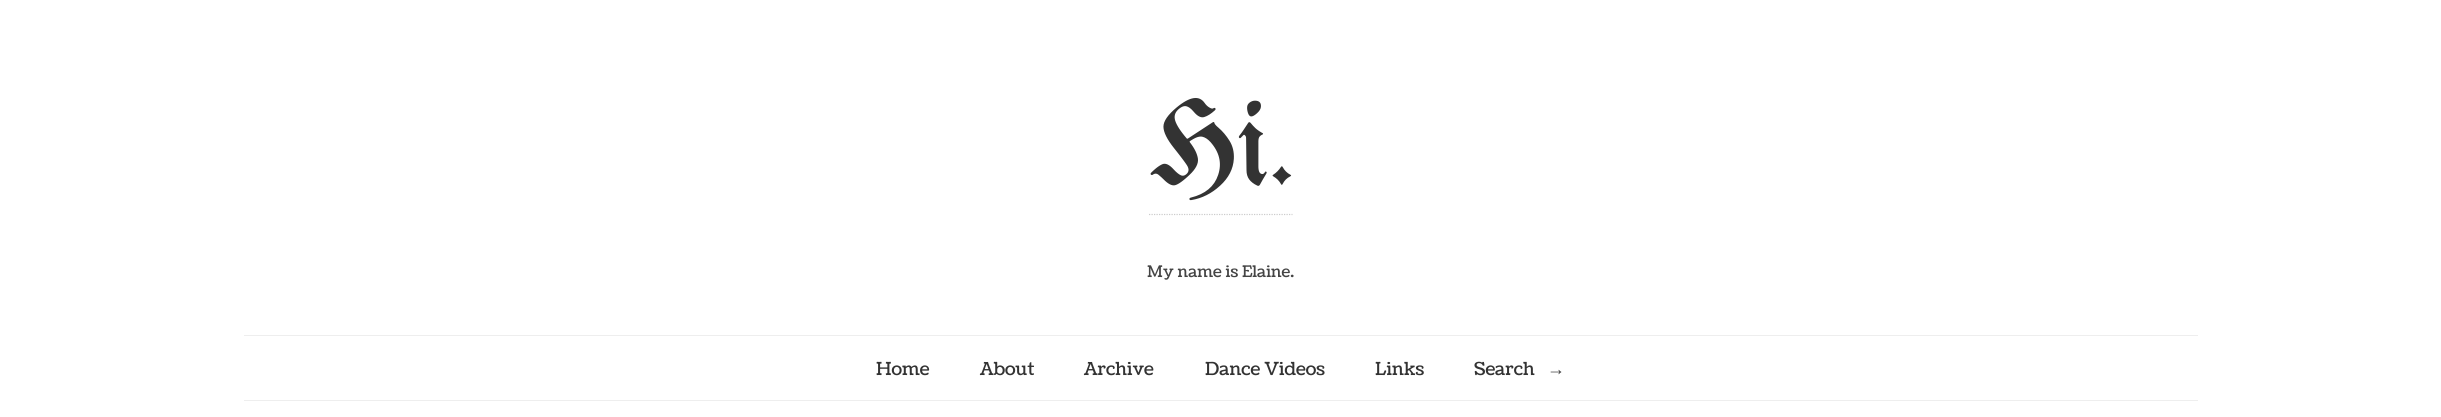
import math
import cairo

surface = cairo.ImageSurface(cairo.Format.RGB24, 2441, 417)
ctx = cairo.Context(surface)
options = cairo.FontOptions()
options.set_hint_metrics(cairo.HintMetrics.OFF)
options.set_hint_style(cairo.HintStyle.NONE)
ctx.set_font_options(options)
ctx.set_miter_limit(4)


def ink(r, g, b):
    ctx.set_source_rgb(r / 255, g / 255, b / 255)


def write(x, y, s, family, size, color, bold=False, italic=False):
    ctx.select_font_face(family, cairo.FontSlant.ITALIC if italic else cairo.FontSlant.NORMAL, cairo.FontWeight.BOLD if bold else cairo.FontWeight.NORMAL)
    ctx.set_font_size(size)
    ink(*color)
    ctx.move_to(x, y)
    ctx.show_text(s)


def block(x, y, w, h, *color):
    ink(*color)
    ctx.rectangle(x, y, w, h)
    ctx.fill()


s1 = dict(family="UnifrakturMaguntia", size=120, color=(51, 51, 51))
s2 = dict(family="Coustard", size=16, color=(68, 68, 68))
s3 = dict(family="Coustard", size=18, color=(51, 51, 51))
s4 = dict(family="Liberation Serif", size=18, color=(68, 68, 68))

ink(255, 255, 255)
ctx.paint()
write(1148, 184, "Hi.", **s1)
ctx.new_path()
ctx.move_to(1149, 214.5)
ctx.line_to(1292.5, 214.5)
ink(204, 204, 204)
ctx.set_line_width(1.2)
ctx.set_dash([1.25, 1.25])
ctx.stroke()
write(1147, 277, "My name is Elaine.", **s2)
block(244, 335, 1954, 1, 238, 238, 238)
block(244, 400, 1954, 1, 238, 238, 238)
write(876, 375, "Home", **s3)
write(980, 375, "About", **s3)
write(1084, 375, "Archive", **s3)
write(1205, 375, "Dance Videos", **s3)
write(1375, 375, "Links", **s3)
write(1474, 375, "Search", **s3)
write(1547, 375, "→", **s4)
surface.write_to_png("screenshot.png")
